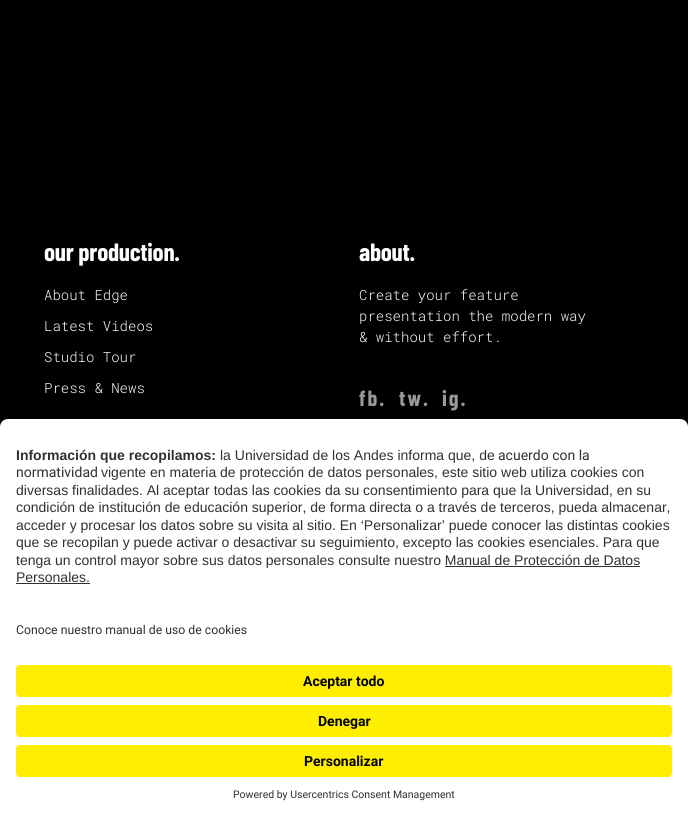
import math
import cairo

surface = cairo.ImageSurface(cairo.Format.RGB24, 688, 817)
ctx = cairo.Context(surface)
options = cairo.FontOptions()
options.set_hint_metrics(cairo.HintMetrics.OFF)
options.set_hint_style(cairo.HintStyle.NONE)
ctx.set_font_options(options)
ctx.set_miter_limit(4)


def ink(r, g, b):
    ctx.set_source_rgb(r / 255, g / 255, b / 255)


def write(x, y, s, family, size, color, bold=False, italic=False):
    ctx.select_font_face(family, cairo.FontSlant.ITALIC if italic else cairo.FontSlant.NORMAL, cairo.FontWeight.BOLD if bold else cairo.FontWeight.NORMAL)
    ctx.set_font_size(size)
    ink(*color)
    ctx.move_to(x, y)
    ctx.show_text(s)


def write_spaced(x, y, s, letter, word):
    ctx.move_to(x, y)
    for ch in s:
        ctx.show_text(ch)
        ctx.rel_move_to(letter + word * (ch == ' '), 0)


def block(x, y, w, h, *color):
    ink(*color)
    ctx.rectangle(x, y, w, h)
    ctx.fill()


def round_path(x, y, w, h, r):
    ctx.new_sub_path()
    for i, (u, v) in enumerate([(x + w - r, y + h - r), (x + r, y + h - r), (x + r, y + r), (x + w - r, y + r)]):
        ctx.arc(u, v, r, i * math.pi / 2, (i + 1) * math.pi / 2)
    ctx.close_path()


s1 = dict(family="Roboto Mono Light", size=14, color=(255, 255, 255))
s2 = dict(family="Liberation Sans", size=14, color=(48, 48, 48), bold=True)
s3 = dict(family="Liberation Sans", size=14, color=(48, 48, 48))
s4 = dict(family="Roboto", size=14, color=(48, 48, 48))
s5 = dict(family="Roboto", size=12.25, color=(48, 48, 48))
s6 = dict(family="Roboto", size=14, color=(0, 0, 0), bold=True)
s7 = dict(family="Roboto", size=10.5, color=(48, 48, 48))

ink(0, 0, 0)
ctx.paint()
ctx.select_font_face("Barlow Condensed", cairo.FontSlant.NORMAL, cairo.FontWeight.BOLD)
ctx.set_font_size(25)
ink(255, 255, 255)
write_spaced(44, 261, "our production.", -0.25, 0)
write(44, 300, "About Edge", **s1)
write(44, 331, "Latest Videos", **s1)
write(44, 362, "Studio Tour", **s1)
write(44, 393, "Press & News", **s1)
ctx.select_font_face("Barlow Condensed", cairo.FontSlant.NORMAL, cairo.FontWeight.BOLD)
ctx.set_font_size(25)
write_spaced(359, 261, "about.", -0.25, 0)
write(359, 300, "Create your feature", **s1)
write(359, 321, "presentation the modern way", **s1)
write(359, 342, "& without effort.", **s1)
ctx.select_font_face("Barlow Condensed", cairo.FontSlant.NORMAL, cairo.FontWeight.BOLD)
ctx.set_font_size(22)
ink(153, 153, 153)
write_spaced(359, 406, "fb.", 2, 0)
write_spaced(399, 406, "tw.", 2, 0)
write_spaced(442, 406, "ig.", 2, 0)
ink(255, 255, 255)
ctx.new_path()
ctx.move_to(8, 419)
ctx.line_to(680, 419)
ctx.curve_to(684.5, 419, 688, 422.5, 688, 427)
ctx.line_to(688, 607)
ctx.line_to(0, 607)
ctx.line_to(0, 427)
ctx.curve_to(0, 422.5, 3.5, 419, 8, 419)
ctx.close_path()
ctx.fill()
write(16, 460, "Información que recopilamos:", **s2)
write(220, 460, "la Universidad de los Andes informa que, de", **s3)
write(498, 460, "acuerdo con la", **s4)
write(16, 477, "normatividad", **s4)
write(101, 477, "vigente en materia de protección de datos personales, este sitio web utiliza cookies con", **s3)
write(16, 495, "diversas finalidades. Al aceptar todas las cookies da su consentimiento para que la Universidad, en su", **s3)
write(16, 512, "condición de institución de educación superior, de forma directa o a través de terceros, pueda almacenar,", **s3)
write(16, 530, "acceder y procesar los datos sobre su visita al sitio. En ‘Personalizar’ puede conocer las distintas cookies", **s3)
write(16, 547, "que se recopilan y puede activar o desactivar su seguimiento, excepto las cookies esenciales. Para que", **s3)
write(16, 565, "tenga un control mayor sobre sus datos personales consulte nuestro Manual de Protección de Datos", **s3)
write(16, 582, "Personales.", **s3)
block(445, 566, 195, 1, 48, 48, 48)
block(16, 583, 74, 1, 48, 48, 48)
block(0, 607, 688, 210, 255, 255, 255)
write(16, 634, "Conoce nuestro manual de uso de cookies", **s5)
ink(255, 238, 0)
round_path(16, 665, 656, 32, 4)
ctx.fill()
write(303, 686, "Aceptar todo", **s6)
ink(255, 238, 0)
round_path(16, 705, 656, 32, 4)
ctx.fill()
write(318, 726, "Denegar", **s6)
ink(255, 238, 0)
round_path(16, 745, 656, 32, 4)
ctx.fill()
write(304, 766, "Personalizar", **s6)
write(233, 798, "Powered by Usercentrics Consent Management", **s7)
surface.write_to_png("screenshot.png")
